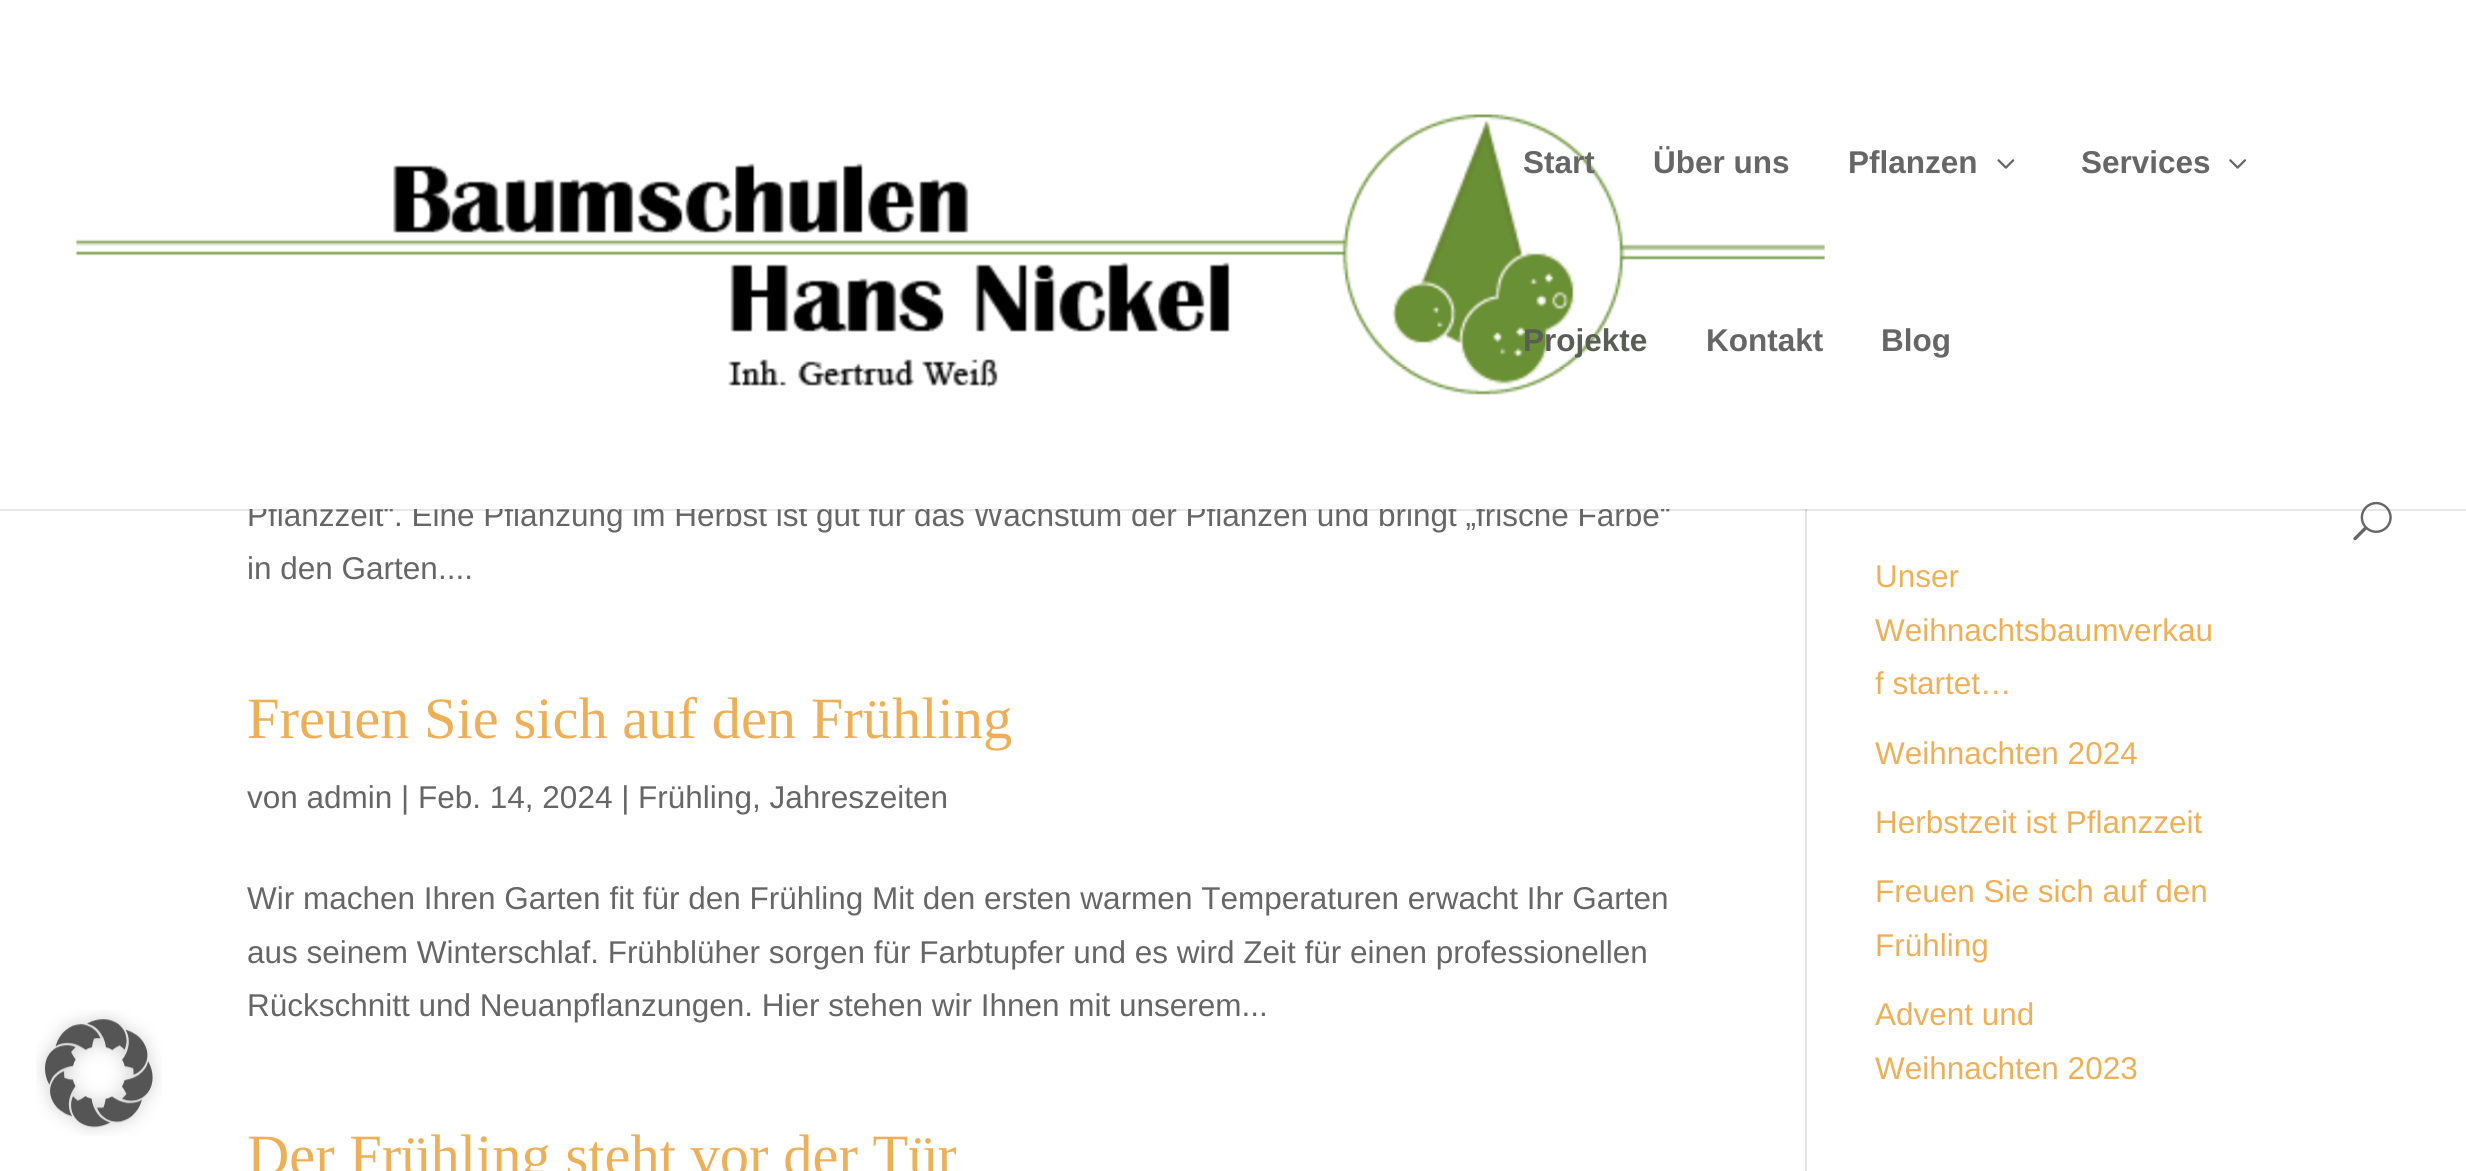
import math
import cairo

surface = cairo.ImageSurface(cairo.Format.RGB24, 2466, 1171)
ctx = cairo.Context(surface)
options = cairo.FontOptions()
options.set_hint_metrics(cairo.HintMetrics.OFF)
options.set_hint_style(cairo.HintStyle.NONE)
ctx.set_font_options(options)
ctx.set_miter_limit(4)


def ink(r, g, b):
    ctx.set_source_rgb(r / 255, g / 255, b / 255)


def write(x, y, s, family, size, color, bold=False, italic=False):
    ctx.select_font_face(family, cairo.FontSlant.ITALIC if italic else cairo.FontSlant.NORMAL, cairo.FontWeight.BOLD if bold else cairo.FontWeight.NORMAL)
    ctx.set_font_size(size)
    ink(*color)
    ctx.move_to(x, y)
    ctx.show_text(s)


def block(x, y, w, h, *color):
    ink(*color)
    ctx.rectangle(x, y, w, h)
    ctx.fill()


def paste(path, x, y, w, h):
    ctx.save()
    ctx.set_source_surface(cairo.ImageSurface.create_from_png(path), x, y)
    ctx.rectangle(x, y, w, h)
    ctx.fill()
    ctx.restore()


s1 = dict(family="Liberation Sans", size=31.5, color=(102, 102, 102))
s2 = dict(family="Liberation Sans", size=31.5, color=(102, 102, 102), bold=True)
s3 = dict(family="Liberation Sans", size=31.5, color=(90, 93, 85), bold=True)
s4 = dict(family="Liberation Serif", size=58.5, color=(237, 176, 89))
s5 = dict(family="Liberation Sans", size=31.5, color=(237, 176, 89))

ink(255, 255, 255)
ctx.paint()
paste("pic1.png", 36, 1010, 126, 126)
block(1805, 509, 2, 662, 226, 226, 226)
ctx.set_source_rgba(0, 0, 0, 0.1)
ctx.rectangle(0, 509, 2466, 2)
ctx.fill()
write(247, 526, "Pflanzzeit“. Eine Pflanzung im Herbst ist gut für das Wachstum der Pflanzen und bringt „frische Farbe“", **s1)
block(249, 503, 1420, 6, 255, 255, 255)
paste("pic2.png", 76, 114, 1749, 281)
write(1523, 173, "Start", **s2)
write(1653, 173, "Über uns", **s2)
write(1848, 173, "Pflanzen", **s2)
paste("pic3.png", 1997, 159, 18, 10)
write(2081, 173, "Services", **s2)
paste("pic4.png", 2229, 159, 17, 10)
write(1523, 351, "Projekte", **s3)
write(1706, 351, "Kontakt", **s2)
write(1881, 351, "Blog", **s2)
paste("pic5.png", 2353, 501, 39, 40)
write(247, 579, "in den Garten....", **s1)
write(247, 738, "Freuen Sie sich auf den Frühling", **s4)
write(247, 808, "von admin | Feb. 14, 2024 | Frühling, Jahreszeiten", **s1)
write(247, 909, "Wir machen Ihren Garten fit für den Frühling Mit den ersten warmen Temperaturen erwacht Ihr Garten", **s1)
write(247, 963, "aus seinem Winterschlaf. Frühblüher sorgen für Farbtupfer und es wird Zeit für einen professionellen", **s1)
write(247, 1016, "Rückschnitt und Neuanpflanzungen. Hier stehen wir Ihnen mit unserem...", **s1)
write(247, 1175, "Der Frühling steht vor der Tür", **s4)
write(1875, 587, "Unser", **s5)
write(1875, 641, "Weihnachtsbaumverkau", **s5)
write(1875, 694, "f startet…", **s5)
write(1875, 764, "Weihnachten 2024", **s5)
write(1875, 833, "Herbstzeit ist Pflanzzeit", **s5)
write(1875, 902, "Freuen Sie sich auf den", **s5)
write(1875, 956, "Frühling", **s5)
write(1875, 1025, "Advent und", **s5)
write(1875, 1079, "Weihnachten 2023", **s5)
surface.write_to_png("screenshot.png")
